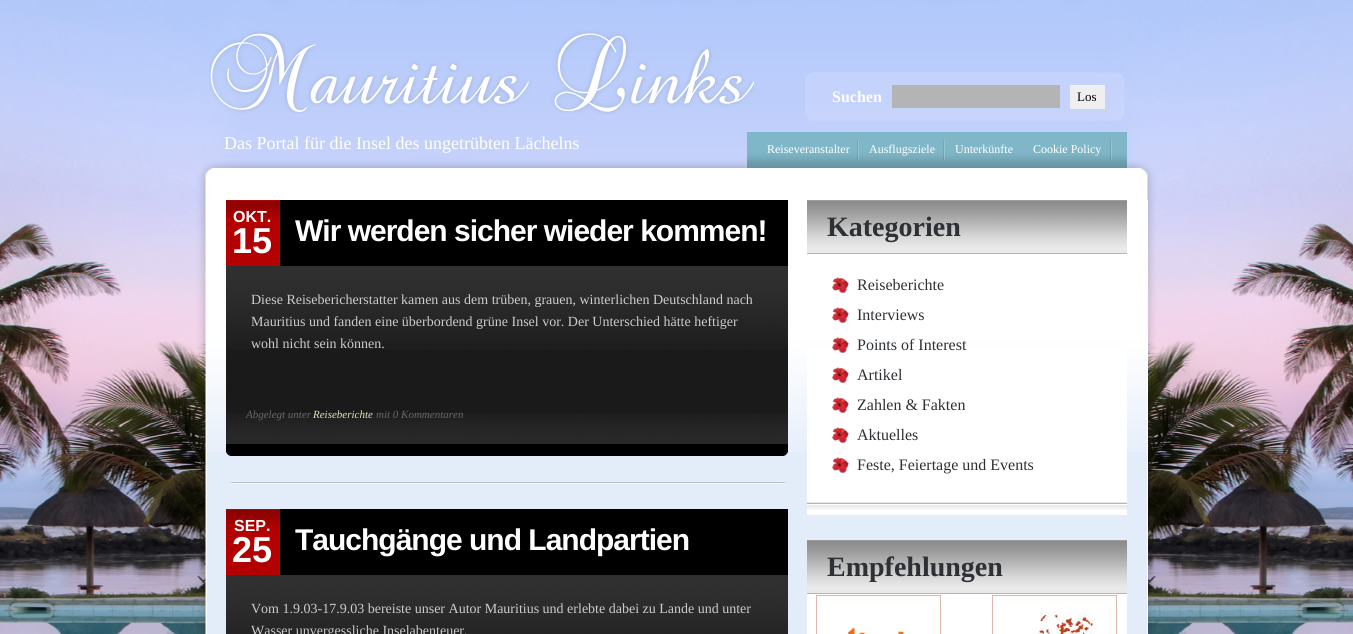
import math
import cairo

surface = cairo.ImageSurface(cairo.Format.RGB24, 1353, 634)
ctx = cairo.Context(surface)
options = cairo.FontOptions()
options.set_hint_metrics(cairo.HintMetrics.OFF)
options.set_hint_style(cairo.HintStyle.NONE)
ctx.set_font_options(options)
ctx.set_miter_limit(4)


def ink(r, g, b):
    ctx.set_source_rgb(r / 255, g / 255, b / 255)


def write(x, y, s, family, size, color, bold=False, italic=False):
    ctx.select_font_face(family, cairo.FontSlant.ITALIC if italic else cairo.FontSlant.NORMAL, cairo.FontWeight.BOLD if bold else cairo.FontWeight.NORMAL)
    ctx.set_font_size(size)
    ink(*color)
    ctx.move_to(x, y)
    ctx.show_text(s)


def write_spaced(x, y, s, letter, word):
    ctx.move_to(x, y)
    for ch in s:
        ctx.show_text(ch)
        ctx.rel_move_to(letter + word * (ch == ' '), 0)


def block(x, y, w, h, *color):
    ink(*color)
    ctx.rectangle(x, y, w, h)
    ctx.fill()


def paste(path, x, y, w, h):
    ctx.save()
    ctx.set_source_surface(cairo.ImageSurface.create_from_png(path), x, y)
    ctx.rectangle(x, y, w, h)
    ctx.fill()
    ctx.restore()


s1 = dict(family="Liberation Serif", size=16, color=(255, 255, 255), bold=True)
s2 = dict(family="Liberation Serif", size=13, color=(0, 0, 0))
s3 = dict(family="Liberation Serif", size=18, color=(255, 255, 255))
s4 = dict(family="Liberation Serif", size=12, color=(255, 255, 255))
s5 = dict(family="Liberation Sans", size=16, color=(255, 255, 255), bold=True)
s6 = dict(family="Liberation Sans", size=36, color=(255, 255, 255), bold=True)
s7 = dict(family="Liberation Serif", size=14, color=(204, 204, 204))
s8 = dict(family="Liberation Serif", size=11, color=(102, 102, 102), italic=True)
s9 = dict(family="Liberation Serif", size=11, color=(227, 225, 184), italic=True)
s10 = dict(family="Liberation Serif", size=28, color=(45, 48, 52), bold=True)
s11 = dict(family="Liberation Serif", size=16, color=(45, 48, 52))

ink(255, 255, 255)
ctx.paint()
paste("pic1.png", 0, 0, 1353, 634)
paste("pic2.png", 209, 31, 545, 83)
paste("pic3.png", 805, 72, 320, 49)
write(832, 102, "Suchen", **s1)
block(892, 85, 168, 23, 180, 180, 180)
block(1070, 85, 35, 24, 239, 239, 239)
write(1077, 101, "Los", **s2)
write(224, 149, "Das Portal für die Insel des ungetrübten Lächelns", **s3)
paste("pic4.png", 747, 132, 380, 36)
paste("pic5.png", 857, 140, 2, 20)
write(767, 153, "Reiseveranstalter", **s4)
paste("pic5.png", 943, 140, 2, 20)
write(869, 153, "Ausflugsziele", **s4)
write(955, 153, "Unterkünfte", **s4)
paste("pic5.png", 1110, 140, 2, 20)
write(1033, 153, "Cookie Policy", **s4)
block(207, 452, 940, 182, 227, 236, 249)
paste("pic6.png", 207, 200, 940, 252)
block(1147, 200, 1, 434, 255, 255, 255)
block(206, 343, 1, 291, 255, 255, 255)
block(280, 200, 508, 66, 0, 0, 0)
paste("pic7.png", 226, 200, 54, 66)
write(233, 222, "OKT.", **s5)
write(232, 253, "15", **s6)
ctx.set_font_size(30)
write_spaced(295, 241, "Wir werden sicher wieder kommen!", -1, 0)
paste("pic8.png", 226, 266, 562, 83)
write(251, 304, "Diese Reisebericherstatter kamen aus dem trüben, grauen, winterlichen Deutschland nach", **s7)
write(251, 326, "Mauritius und fanden eine überbordend grüne Insel vor. Der Unterschied hätte heftiger", **s7)
write(251, 348, "wohl nicht sein können.", **s7)
block(226, 349, 562, 64, 26, 26, 26)
paste("pic9.png", 226, 413, 562, 31)
write(246, 418, "Abgelegt unter", **s8)
write(313, 418, "Reiseberichte", **s9)
write(376, 418, "mit 0 Kommentaren", **s8)
block(226, 444, 562, 7, 0, 0, 0)
paste("pic10.png", 226, 451, 562, 43)
block(280, 509, 508, 66, 0, 0, 0)
paste("pic7.png", 226, 509, 54, 66)
write(234, 531, "SEP.", **s5)
write(232, 562, "25", **s6)
ctx.set_font_size(30)
write_spaced(295, 550, "Tauchgänge und Landpartien", -1, 0)
paste("pic11.png", 226, 575, 562, 59)
write(251, 613, "Vom 1.9.03-17.9.03 bereiste unser Autor Mauritius und erlebte dabei zu Lande und unter", **s7)
write(251, 635, "Wasser unvergessliche Inselabenteuer.", **s7)
block(807, 348, 320, 167, 255, 255, 255)
paste("pic12.png", 807, 502, 320, 8)
paste("pic13.png", 807, 200, 320, 54)
write(827, 236, "Kategorien", **s10)
paste("pic14.png", 832, 277, 17, 16)
write(857, 290, "Reiseberichte", **s11)
paste("pic14.png", 832, 307, 17, 16)
write(857, 320, "Interviews", **s11)
paste("pic14.png", 832, 337, 17, 16)
write(857, 350, "Points of Interest", **s11)
paste("pic14.png", 832, 367, 17, 16)
write(857, 380, "Artikel", **s11)
paste("pic14.png", 832, 397, 17, 16)
write(857, 410, "Zahlen & Fakten", **s11)
paste("pic14.png", 832, 427, 17, 16)
write(857, 440, "Aktuelles", **s11)
paste("pic14.png", 832, 457, 17, 16)
write(857, 470, "Feste, Feiertage und Events", **s11)
block(807, 594, 320, 40, 255, 255, 255)
paste("pic13.png", 807, 540, 320, 54)
write(827, 576, "Empfehlungen", **s10)
paste("pic15.png", 816, 595, 125, 39)
paste("pic16.png", 992, 595, 125, 39)
surface.write_to_png("screenshot.png")
